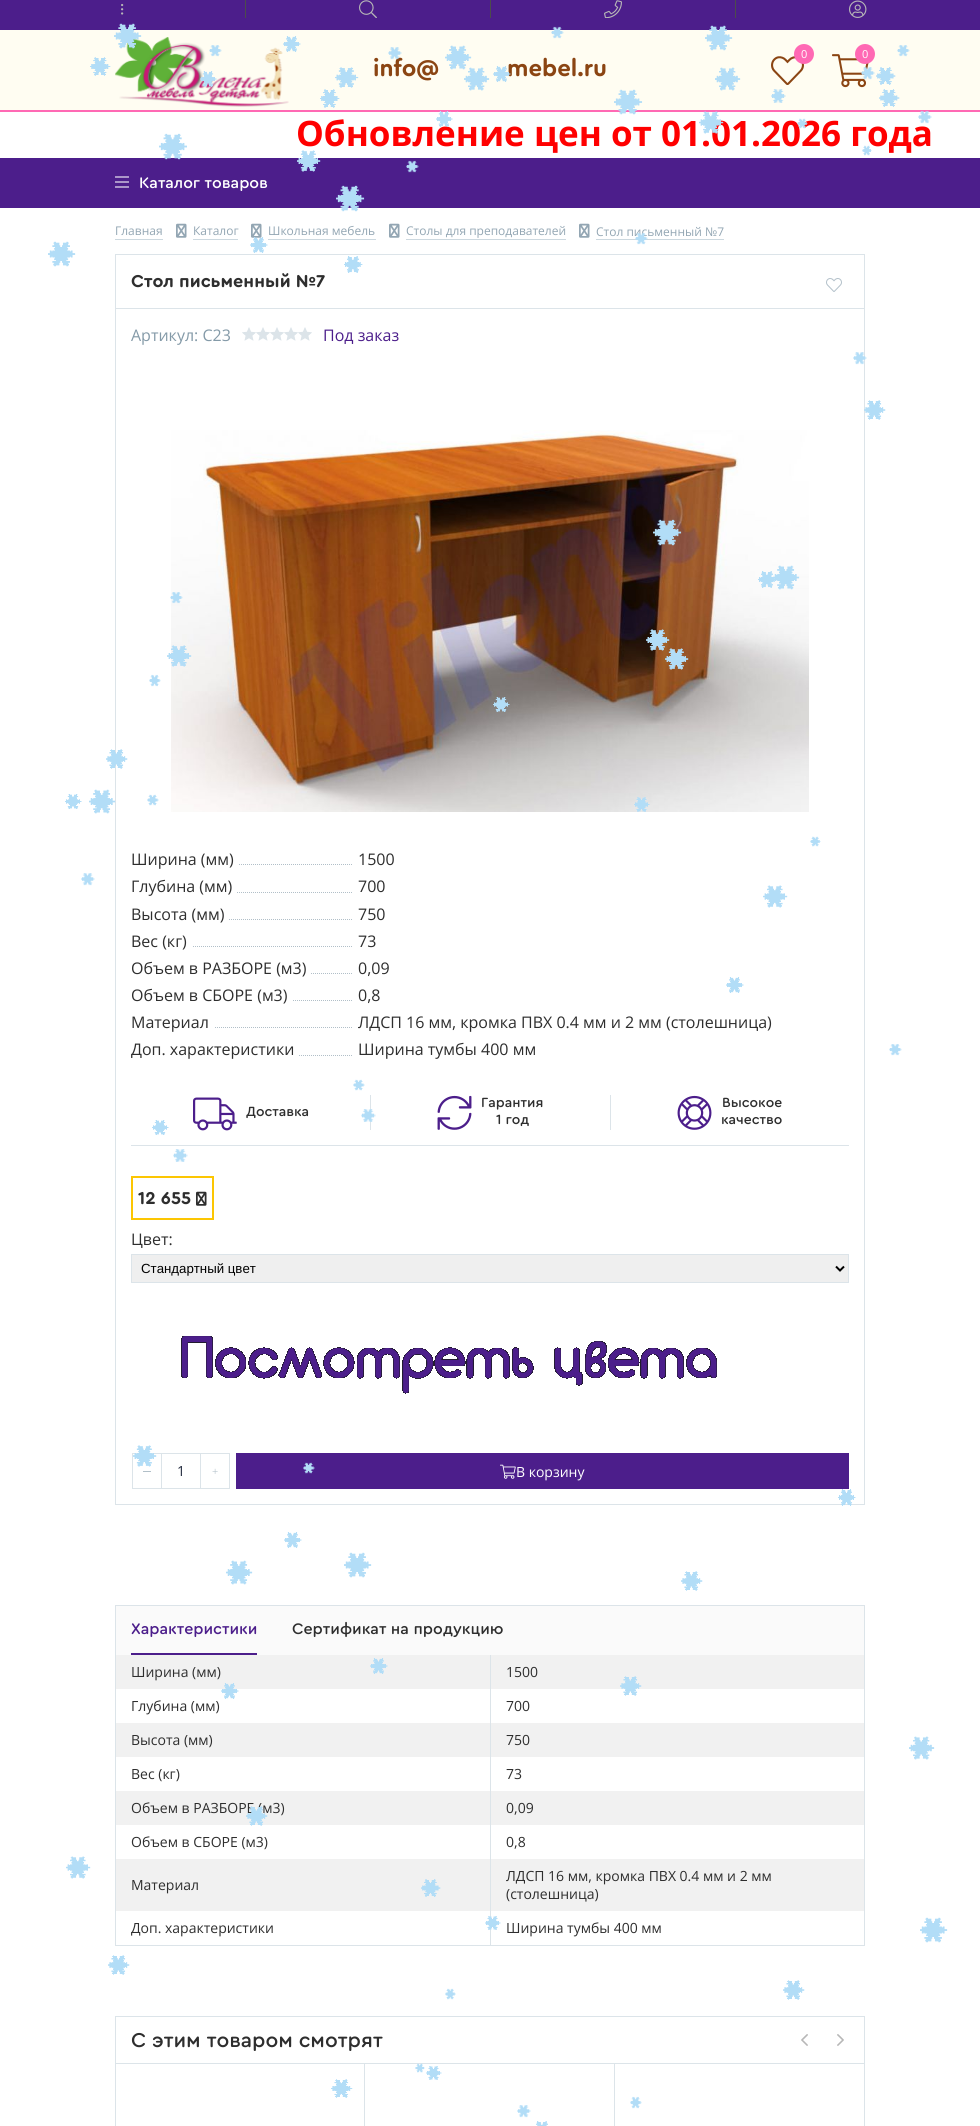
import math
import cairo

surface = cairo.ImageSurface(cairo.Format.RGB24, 980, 2126)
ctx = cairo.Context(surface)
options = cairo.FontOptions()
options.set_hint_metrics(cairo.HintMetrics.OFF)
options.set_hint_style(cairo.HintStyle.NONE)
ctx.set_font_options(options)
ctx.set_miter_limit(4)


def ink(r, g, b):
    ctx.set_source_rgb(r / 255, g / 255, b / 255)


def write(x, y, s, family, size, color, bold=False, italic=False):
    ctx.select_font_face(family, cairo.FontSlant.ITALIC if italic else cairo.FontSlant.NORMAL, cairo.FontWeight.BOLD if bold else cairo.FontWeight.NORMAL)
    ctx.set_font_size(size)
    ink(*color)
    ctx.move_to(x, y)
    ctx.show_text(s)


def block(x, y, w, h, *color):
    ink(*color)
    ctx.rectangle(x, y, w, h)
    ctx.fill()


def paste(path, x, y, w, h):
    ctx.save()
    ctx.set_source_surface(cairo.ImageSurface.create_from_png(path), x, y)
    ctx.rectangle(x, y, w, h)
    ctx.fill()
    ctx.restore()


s1 = dict(family="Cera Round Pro", size=24, color=(139, 69, 19), bold=True)
s2 = dict(family="Open Sans", size=11, color=(255, 255, 255))
s3 = dict(family="Open Sans", size=35, color=(255, 0, 0), bold=True)
s4 = dict(family="Cera Round Pro Medium", size=16, color=(255, 255, 255))
s5 = dict(family="Open Sans", size=12, color=(147, 166, 179))
s6 = dict(family="Cera Round Pro", size=18, color=(46, 46, 46), bold=True)
s7 = dict(family="Open Sans", size=16, color=(132, 154, 168))
s8 = dict(family="Open Sans", size=16, color=(76, 30, 139))
s9 = dict(family="Open Sans", size=16, color=(46, 46, 46))
s10 = dict(family="Cera Round Pro Medium", size=14, color=(46, 46, 46))
s11 = dict(family="Liberation Sans", size=13.25, color=(0, 0, 0))
s12 = dict(family="Open Sans", size=14, color=(33, 41, 60))
s13 = dict(family="Liberation Serif", size=11, color=(177, 191, 200))
s14 = dict(family="Open Sans", size=14, color=(255, 255, 255))
s15 = dict(family="Cera Round Pro Medium", size=16, color=(76, 30, 139))
s16 = dict(family="Cera Round Pro Medium", size=16, color=(46, 46, 46))
s17 = dict(family="Open Sans", size=14, color=(46, 46, 46))
s18 = dict(family="Cera Round Pro Medium", size=21, color=(46, 46, 46))

ink(255, 255, 255)
ctx.paint()
block(0, 0, 980, 30, 76, 30, 139)
block(0, 30, 980, 80, 255, 253, 242)
paste("pic13.png", 115, 37, 174, 70)
paste("pic1.png", 114, 23, 28, 26)
paste("pic2.png", 551, 26, 13, 13)
paste("pic3.png", 705, 25, 28, 26)
paste("pic4.png", 209, 45, 13, 12)
paste("pic5.png", 283, 36, 18, 16)
write(373, 76, "info@", **s1)
paste("pic6.png", 388, 47, 14, 13)
paste("pic7.png", 445, 45, 27, 25)
paste("pic4.png", 897, 45, 13, 12)
paste("pic8.png", 90, 57, 21, 19)
paste("pic9.png", 121, 3, 3, 12)
block(245, 0, 1, 18, 76, 76, 76)
paste("pic10.png", 359, 0, 18, 18)
block(490, 0, 1, 18, 76, 76, 76)
paste("pic11.png", 604, 0, 18, 18)
block(735, 0, 1, 18, 76, 76, 76)
paste("pic12.png", 849, 0, 18, 18)
block(0, 110, 980, 2, 255, 105, 180)
paste("pic14.png", 771, 56, 33, 29)
ctx.arc(804, 54, 10, 0, 2 * math.pi)
ctx.fill()
write(801, 58, "0", **s2)
paste("pic15.png", 832, 54, 37, 34)
ink(255, 105, 180)
ctx.arc(865, 54, 10, 0, 2 * math.pi)
ctx.fill()
write(862, 58, "0", **s2)
write(507, 76, "mebel.ru", **s1)
write(296, 146, "Обновление цен от 01.01.2026 года", **s3)
block(0, 158, 980, 50, 76, 30, 139)
paste("pic16.png", 115, 176, 14, 12)
write(139, 188, "Каталог товаров", **s4)
paste("pic17.png", 200, 71, 17, 16)
paste("pic18.png", 335, 67, 24, 21)
paste("pic19.png", 464, 67, 26, 24)
paste("pic20.png", 493, 66, 18, 16)
paste("pic21.png", 715, 67, 26, 24)
paste("pic22.png", 861, 67, 14, 13)
paste("pic23.png", 876, 67, 20, 18)
paste("pic24.png", 320, 89, 20, 19)
paste("pic25.png", 614, 89, 29, 26)
paste("pic26.png", 771, 89, 15, 14)
paste("pic27.png", 879, 89, 21, 18)
paste("pic28.png", 436, 111, 17, 16)
paste("pic29.png", 699, 111, 25, 23)
paste("pic30.png", 797, 118, 11, 11)
paste("pic31.png", 918, 110, 14, 14)
paste("pic32.png", 159, 133, 28, 27)
paste("pic33.png", 297, 150, 24, 22)
paste("pic34.png", 406, 160, 13, 13)
paste("pic35.png", 862, 145, 10, 11)
paste("pic36.png", 336, 185, 29, 27)
write(115, 235, "Главная", **s5)
block(115, 239, 48, 1, 204, 216, 223)
paste("pic37.png", 176, 223, 11, 15)
write(193, 235, "Каталог", **s5)
block(193, 239, 45, 1, 204, 216, 223)
paste("pic37.png", 251, 223, 11, 15)
write(268, 235, "Школьная мебель", **s5)
block(268, 239, 108, 1, 204, 216, 223)
paste("pic37.png", 389, 223, 11, 15)
write(406, 235, "Столы для преподавателей", **s5)
block(406, 239, 160, 1, 204, 216, 223)
paste("pic37.png", 579, 223, 11, 15)
block(596, 239, 128, 1, 204, 216, 223)
write(596, 236, "Стол письменный №7", **s5)
paste("pic38.png", 48, 241, 28, 26)
paste("pic39.png", 250, 237, 18, 16)
ctx.rectangle(115.5, 254.5, 749, 1250)
ink(220, 228, 233)
ctx.set_line_width(1)
ctx.stroke()
paste("pic40.png", 344, 256, 19, 17)
paste("pic41.png", 635, 233, 13, 12)
write(131, 287, "Стол письменный №7", **s6)
paste("pic42.png", 826, 278, 16, 14)
block(116, 308, 748, 1, 220, 228, 233)
write(131, 341, "Артикул: С23", **s7)
paste("pic43.png", 242, 327, 70, 14)
write(323, 341, "Под заказ", **s8)
paste("pic44.png", 171, 430, 638, 382)
ctx.new_path()
ctx.move_to(131, 864.5)
ctx.line_to(353, 864.5)
ink(177, 191, 200)
ctx.set_dash([1, 1])
ctx.stroke()
block(131, 864, 107, 1, 255, 255, 255)
write(131, 865, "Ширина (мм)", **s9)
write(358, 865, "1500", **s9)
ctx.new_path()
ctx.move_to(131, 892.5)
ctx.line_to(353, 892.5)
ink(177, 191, 200)
ctx.stroke()
block(131, 892, 105, 1, 255, 255, 255)
write(131, 892, "Глубина (мм)", **s9)
write(358, 892, "700", **s9)
ctx.new_path()
ctx.move_to(131, 919.5)
ctx.line_to(353, 919.5)
ink(177, 191, 200)
ctx.stroke()
block(131, 919, 97, 1, 255, 255, 255)
write(131, 920, "Высота (мм)", **s9)
write(358, 920, "750", **s9)
ctx.new_path()
ctx.move_to(131, 946.5)
ctx.line_to(353, 946.5)
ink(177, 191, 200)
ctx.stroke()
block(131, 946, 61, 1, 255, 255, 255)
write(131, 947, "Вес (кг)", **s9)
write(358, 947, "73", **s9)
ctx.new_path()
ctx.move_to(131, 973.5)
ctx.line_to(353, 973.5)
ink(177, 191, 200)
ctx.stroke()
block(131, 973, 179, 1, 255, 255, 255)
write(131, 974, "Объем в РАЗБОРЕ (м3)", **s9)
write(358, 974, "0,09", **s9)
ctx.new_path()
ctx.move_to(131, 1000.5)
ctx.line_to(353, 1000.5)
ink(177, 191, 200)
ctx.stroke()
block(131, 1000, 161, 1, 255, 255, 255)
write(131, 1001, "Объем в СБОРЕ (м3)", **s9)
write(358, 1001, "0,8", **s9)
ctx.new_path()
ctx.move_to(131, 1027.5)
ctx.line_to(353, 1027.5)
ink(177, 191, 200)
ctx.stroke()
block(131, 1027, 83, 1, 255, 255, 255)
write(131, 1028, "Материал", **s9)
write(358, 1028, "ЛДСП 16 мм, кромка ПВХ 0.4 мм и 2 мм (столешница)", **s9)
ctx.new_path()
ctx.move_to(131, 1055.5)
ctx.line_to(353, 1055.5)
ink(177, 191, 200)
ctx.stroke()
block(131, 1055, 167, 1, 255, 255, 255)
write(131, 1055, "Доп. характеристики", **s9)
write(358, 1055, "Ширина тумбы 400 мм", **s9)
block(131, 1145, 718, 1, 220, 228, 233)
paste("pic45.png", 193, 1097, 44, 34)
write(246, 1116, "Доставка", **s10)
block(370, 1095, 1, 35, 220, 228, 233)
paste("pic46.png", 437, 1095, 35, 35)
write(481, 1107, "Гарантия", **s10)
write(496, 1124, "1 год", **s10)
block(610, 1095, 1, 35, 220, 228, 233)
paste("pic47.png", 677, 1095, 35, 35)
write(722, 1107, "Высокое", **s10)
write(721, 1124, "качество", **s10)
ctx.rectangle(132, 1177, 81, 42)
ink(252, 198, 2)
ctx.set_line_width(2)
ctx.set_dash([])
ctx.stroke()
write(138, 1204, "12 655", **s6)
paste("pic48.png", 196, 1191, 11, 15)
write(131, 1245, "Цвет:", **s9)
ink(239, 239, 239)
ctx.rectangle(131.5, 1254.5, 717, 28)
ctx.fill_preserve()
ink(220, 228, 233)
ctx.set_line_width(1)
ctx.stroke()
ctx.new_path()
ctx.move_to(836, 1266.5)
ctx.line_to(840, 1270.5)
ctx.line_to(844, 1266.5)
ink(0, 0, 0)
ctx.set_line_width(2)
ctx.stroke()
write(141, 1273, "Стандартный цвет", **s11)
paste("pic49.png", 181, 1336, 536, 58)
ctx.rectangle(161.5, 1453.5, 39, 35)
ink(220, 228, 233)
ctx.set_line_width(1)
ctx.stroke()
ctx.rectangle(132.5, 1453.5, 29, 35)
ctx.stroke()
block(143, 1471, 8, 1, 177, 191, 200)
write(177, 1476, "1", **s12)
ctx.rectangle(200.5, 1453.5, 29, 35)
ink(220, 228, 233)
ctx.stroke()
write(212, 1475, "+", **s13)
block(236, 1453, 613, 36, 76, 30, 139)
paste("pic50.png", 500, 1464, 16, 15)
write(516, 1477, "В корзину", **s14)
paste("pic51.png", 853, 352, 14, 13)
paste("pic52.png", 864, 400, 22, 20)
paste("pic53.png", 653, 519, 29, 27)
paste("pic54.png", 758, 571, 17, 17)
paste("pic55.png", 773, 565, 27, 25)
paste("pic56.png", 170, 592, 13, 12)
paste("pic57.png", 646, 629, 24, 22)
paste("pic58.png", 167, 645, 25, 22)
paste("pic59.png", 665, 648, 24, 22)
paste("pic60.png", 149, 674, 12, 13)
paste("pic61.png", 493, 697, 17, 15)
paste("pic62.png", 106, 749, 22, 20)
paste("pic63.png", 65, 794, 17, 15)
paste("pic64.png", 89, 789, 27, 25)
paste("pic65.png", 147, 794, 12, 12)
paste("pic66.png", 634, 797, 16, 15)
paste("pic67.png", 810, 836, 11, 11)
paste("pic68.png", 81, 873, 14, 13)
paste("pic69.png", 763, 885, 25, 23)
paste("pic70.png", 726, 977, 18, 16)
paste("pic71.png", 889, 1044, 13, 12)
paste("pic65.png", 353, 1079, 12, 12)
paste("pic72.png", 361, 1109, 15, 13)
paste("pic63.png", 152, 1120, 17, 15)
paste("pic73.png", 173, 1149, 15, 13)
paste("pic74.png", 133, 1445, 24, 22)
paste("pic75.png", 303, 1462, 12, 12)
paste("pic76.png", 838, 1489, 18, 17)
paste("pic77.png", 284, 1532, 18, 16)
paste("pic78.png", 226, 1560, 27, 25)
paste("pic38.png", 344, 1552, 28, 26)
paste("pic79.png", 681, 1571, 22, 20)
ctx.rectangle(115.5, 1605.5, 749, 340)
ink(220, 228, 233)
ctx.stroke()
block(116, 1606, 748, 49, 250, 250, 250)
block(131, 1653, 126, 2, 76, 30, 139)
write(131, 1634, "Характеристики", **s15)
write(292, 1634, "Сертификат на продукцию", **s16)
block(116, 1655, 748, 34, 241, 241, 241)
write(131, 1677, "Ширина (мм)", **s17)
write(506, 1677, "1500", **s17)
write(131, 1711, "Глубина (мм)", **s17)
write(506, 1711, "700", **s17)
block(116, 1723, 748, 34, 241, 241, 241)
write(131, 1745, "Высота (мм)", **s17)
write(506, 1745, "750", **s17)
write(131, 1779, "Вес (кг)", **s17)
write(506, 1779, "73", **s17)
block(116, 1791, 748, 34, 241, 241, 241)
write(131, 1813, "Объем в РАЗБОРЕ (м3)", **s17)
write(506, 1813, "0,09", **s17)
write(131, 1847, "Объем в СБОРЕ (м3)", **s17)
write(506, 1847, "0,8", **s17)
block(116, 1859, 748, 52, 241, 241, 241)
write(131, 1890, "Материал", **s17)
write(506, 1881, "ЛДСП 16 мм, кромка ПВХ 0.4 мм и 2 мм", **s17)
write(506, 1899, "(столешница)", **s17)
block(490, 1655, 1, 290, 220, 228, 233)
write(131, 1933, "Доп. характеристики", **s17)
write(506, 1933, "Ширина тумбы 400 мм", **s17)
paste("pic80.png", 370, 1658, 18, 16)
paste("pic81.png", 221, 1683, 18, 16)
paste("pic82.png", 620, 1676, 22, 20)
paste("pic83.png", 909, 1736, 26, 24)
paste("pic84.png", 246, 1806, 22, 20)
paste("pic69.png", 66, 1856, 25, 23)
paste("pic85.png", 421, 1879, 20, 18)
paste("pic86.png", 485, 1916, 16, 14)
paste("pic38.png", 920, 1917, 28, 26)
paste("pic79.png", 108, 1955, 22, 20)
paste("pic87.png", 445, 1988, 11, 12)
paste("pic88.png", 783, 1980, 22, 20)
ctx.rectangle(115.5, 2016.5, 749, 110)
ink(220, 228, 233)
ctx.stroke()
block(116, 2063, 748, 1, 220, 228, 233)
write(131, 2047, "С этим товаром смотрят", **s18)
paste("pic89.png", 801, 2034, 7, 12)
paste("pic90.png", 837, 2034, 7, 12)
block(364, 2064, 1, 62, 220, 228, 233)
block(614, 2064, 1, 62, 220, 228, 233)
paste("pic91.png", 415, 2063, 10, 10)
paste("pic92.png", 426, 2066, 16, 14)
paste("pic93.png", 331, 2079, 22, 19)
paste("pic60.png", 630, 2096, 12, 13)
paste("pic94.png", 517, 2105, 14, 13)
paste("pic95.png", 536, 2121, 12, 5)
surface.write_to_png("screenshot.png")
